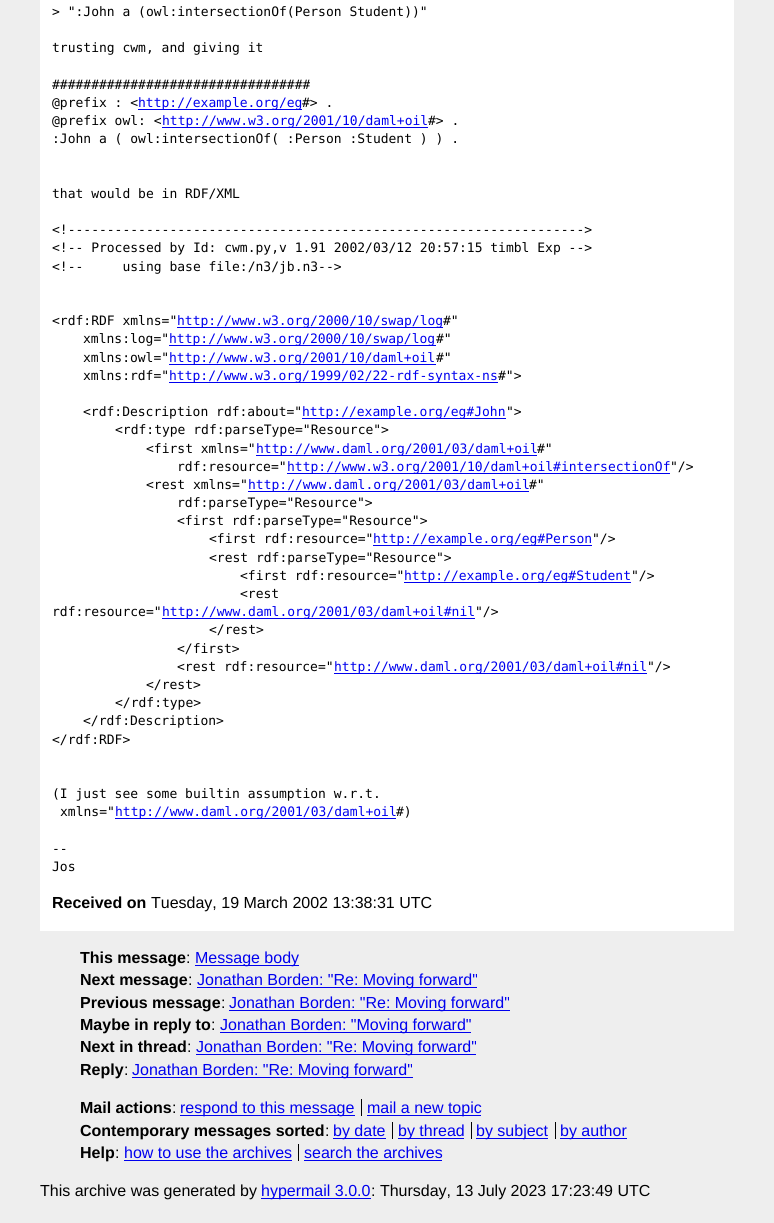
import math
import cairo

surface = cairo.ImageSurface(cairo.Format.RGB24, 774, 1223)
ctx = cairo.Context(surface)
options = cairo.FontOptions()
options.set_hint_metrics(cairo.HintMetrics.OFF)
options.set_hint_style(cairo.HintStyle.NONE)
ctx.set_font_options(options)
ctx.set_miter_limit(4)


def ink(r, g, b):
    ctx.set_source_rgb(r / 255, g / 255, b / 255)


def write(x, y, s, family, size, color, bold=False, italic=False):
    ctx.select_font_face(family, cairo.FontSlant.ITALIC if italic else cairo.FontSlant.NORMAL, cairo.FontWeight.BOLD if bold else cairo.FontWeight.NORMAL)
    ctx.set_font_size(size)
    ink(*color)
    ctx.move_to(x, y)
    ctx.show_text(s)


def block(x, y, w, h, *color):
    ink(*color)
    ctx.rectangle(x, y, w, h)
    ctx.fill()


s1 = dict(family="DejaVu Sans Mono", size=13, color=(0, 0, 0))
s2 = dict(family="DejaVu Sans Mono", size=13, color=(0, 0, 238))
s3 = dict(family="Liberation Sans", size=16, color=(0, 0, 0), bold=True)
s4 = dict(family="Liberation Sans", size=16, color=(0, 0, 0))
s5 = dict(family="Liberation Sans", size=16, color=(0, 0, 238))

ink(238, 238, 238)
ctx.paint()
block(40, 0, 694, 931, 255, 255, 255)
write(52, 16, "> \":John a (owl:intersectionOf(Person Student))\"", **s1)
write(52, 52, "trusting cwm, and giving it", **s1)
write(52, 89, "#################################", **s1)
write(52, 107, "@prefix : <", **s1)
block(138, 109, 164, 1, 0, 0, 238)
write(138, 107, "http://example.org/eg", **s2)
write(302, 107, "#> .", **s1)
write(52, 125, "@prefix owl: <", **s1)
block(162, 127, 266, 1, 0, 0, 238)
write(162, 125, "http://www.w3.org/2001/10/daml+oil", **s2)
write(428, 125, "#> .", **s1)
write(52, 143, ":John a ( owl:intersectionOf( :Person :Student ) ) .", **s1)
write(52, 198, "that would be in RDF/XML", **s1)
write(52, 234, "<!------------------------------------------------------------------>", **s1)
write(52, 252, "<!-- Processed by Id: cwm.py,v 1.91 2002/03/12 20:57:15 timbl Exp -->", **s1)
write(52, 271, "<!--     using base file:/n3/jb.n3-->", **s1)
write(52, 325, "<rdf:RDF xmlns=\"", **s1)
block(177, 327, 266, 1, 0, 0, 238)
write(177, 325, "http://www.w3.org/2000/10/swap/log", **s2)
write(443, 325, "#\"", **s1)
write(83, 343, "xmlns:log=\"", **s1)
block(169, 345, 267, 1, 0, 0, 238)
write(169, 343, "http://www.w3.org/2000/10/swap/log", **s2)
write(436, 343, "#\"", **s1)
write(83, 362, "xmlns:owl=\"", **s1)
block(169, 364, 267, 1, 0, 0, 238)
write(169, 362, "http://www.w3.org/2001/10/daml+oil", **s2)
write(436, 362, "#\"", **s1)
write(83, 380, "xmlns:rdf=\"", **s1)
block(169, 382, 329, 1, 0, 0, 238)
write(169, 380, "http://www.w3.org/1999/02/22-rdf-syntax-ns", **s2)
write(498, 380, "#\">", **s1)
write(83, 416, "<rdf:Description rdf:about=\"", **s1)
block(302, 418, 204, 1, 0, 0, 238)
write(302, 416, "http://example.org/eg#John", **s2)
write(506, 416, "\">", **s1)
write(115, 434, "<rdf:type rdf:parseType=\"Resource\">", **s1)
write(146, 453, "<first xmlns=\"", **s1)
block(256, 455, 281, 1, 0, 0, 238)
write(256, 453, "http://www.daml.org/2001/03/daml+oil", **s2)
write(537, 453, "#\"", **s1)
write(177, 471, "rdf:resource=\"", **s1)
block(287, 473, 383, 1, 0, 0, 238)
write(287, 471, "http://www.w3.org/2001/10/daml+oil#intersectionOf", **s2)
write(670, 471, "\"/>", **s1)
write(146, 489, "<rest xmlns=\"", **s1)
block(248, 491, 281, 1, 0, 0, 238)
write(248, 489, "http://www.daml.org/2001/03/daml+oil", **s2)
write(529, 489, "#\"", **s1)
write(177, 507, "rdf:parseType=\"Resource\">", **s1)
write(177, 525, "<first rdf:parseType=\"Resource\">", **s1)
write(209, 543, "<first rdf:resource=\"", **s1)
block(373, 545, 219, 1, 0, 0, 238)
write(373, 543, "http://example.org/eg#Person", **s2)
write(592, 543, "\"/>", **s1)
write(209, 562, "<rest rdf:parseType=\"Resource\">", **s1)
write(240, 580, "<first rdf:resource=\"", **s1)
block(404, 582, 227, 1, 0, 0, 238)
write(404, 580, "http://example.org/eg#Student", **s2)
write(631, 580, "\"/>", **s1)
write(240, 598, "<rest", **s1)
write(52, 616, "rdf:resource=\"", **s1)
block(162, 618, 313, 1, 0, 0, 238)
write(162, 616, "http://www.daml.org/2001/03/daml+oil#nil", **s2)
write(475, 616, "\"/>", **s1)
write(209, 634, "</rest>", **s1)
write(177, 653, "</first>", **s1)
write(177, 671, "<rest rdf:resource=\"", **s1)
block(334, 673, 313, 1, 0, 0, 238)
write(334, 671, "http://www.daml.org/2001/03/daml+oil#nil", **s2)
write(647, 671, "\"/>", **s1)
write(146, 689, "</rest>", **s1)
write(115, 707, "</rdf:type>", **s1)
write(83, 725, "</rdf:Description>", **s1)
write(52, 744, "</rdf:RDF>", **s1)
write(52, 798, "(I just see some builtin assumption w.r.t.", **s1)
write(60, 816, "xmlns=\"", **s1)
block(115, 818, 281, 1, 0, 0, 238)
write(115, 816, "http://www.daml.org/2001/03/daml+oil", **s2)
write(396, 816, "#)", **s1)
write(52, 853, "--", **s1)
write(52, 871, "Jos", **s1)
write(52, 908, "Received on", **s3)
write(151, 908, "Tuesday, 19 March 2002 13:38:31 UTC", **s4)
write(80, 963, "This message", **s3)
write(186, 963, ":", **s4)
block(195, 965, 104, 1, 0, 0, 238)
write(195, 963, "Message body", **s5)
write(80, 985, "Next message", **s3)
write(188, 985, ":", **s4)
block(197, 987, 280, 1, 0, 0, 238)
write(197, 985, "Jonathan Borden: \"Re: Moving forward\"", **s5)
write(80, 1008, "Previous message", **s3)
write(221, 1008, ":", **s4)
block(229, 1010, 281, 1, 0, 0, 238)
write(229, 1008, "Jonathan Borden: \"Re: Moving forward\"", **s5)
write(80, 1030, "Maybe in reply to", **s3)
write(211, 1030, ":", **s4)
block(220, 1032, 251, 1, 0, 0, 238)
write(220, 1030, "Jonathan Borden: \"Moving forward\"", **s5)
write(80, 1052, "Next in thread", **s3)
write(187, 1052, ":", **s4)
block(196, 1054, 280, 1, 0, 0, 238)
write(196, 1052, "Jonathan Borden: \"Re: Moving forward\"", **s5)
write(80, 1075, "Reply", **s3)
write(124, 1075, ":", **s4)
block(132, 1077, 281, 1, 0, 0, 238)
write(132, 1075, "Jonathan Borden: \"Re: Moving forward\"", **s5)
write(80, 1113, "Mail actions", **s3)
write(172, 1113, ":", **s4)
block(180, 1115, 175, 1, 0, 0, 238)
write(180, 1113, "respond to this message", **s5)
block(367, 1115, 114, 1, 0, 0, 238)
write(367, 1113, "mail a new topic", **s5)
block(361, 1099, 1, 17, 0, 0, 0)
write(80, 1136, "Contemporary messages sorted", **s3)
write(325, 1136, ":", **s4)
block(333, 1138, 53, 1, 0, 0, 238)
write(333, 1136, "by date", **s5)
block(398, 1138, 66, 1, 0, 0, 238)
write(398, 1136, "by thread", **s5)
block(392, 1122, 1, 17, 0, 0, 0)
block(476, 1138, 72, 1, 0, 0, 238)
write(476, 1136, "by subject", **s5)
block(471, 1122, 1, 17, 0, 0, 0)
block(560, 1138, 67, 1, 0, 0, 238)
write(560, 1136, "by author", **s5)
block(555, 1122, 1, 17, 0, 0, 0)
write(80, 1158, "Help", **s3)
write(115, 1158, ":", **s4)
write(124, 1158, "how to use the archives", **s5)
block(124, 1160, 168, 1, 0, 0, 238)
write(304, 1158, "search the archives", **s5)
block(298, 1144, 1, 17, 0, 0, 0)
block(304, 1160, 138, 1, 0, 0, 238)
write(40, 1196, "This archive was generated by", **s4)
block(261, 1198, 110, 1, 0, 0, 238)
write(261, 1196, "hypermail 3.0.0", **s5)
write(371, 1196, ": Thursday, 13 July 2023 17:23:49 UTC", **s4)
surface.write_to_png("screenshot.png")
